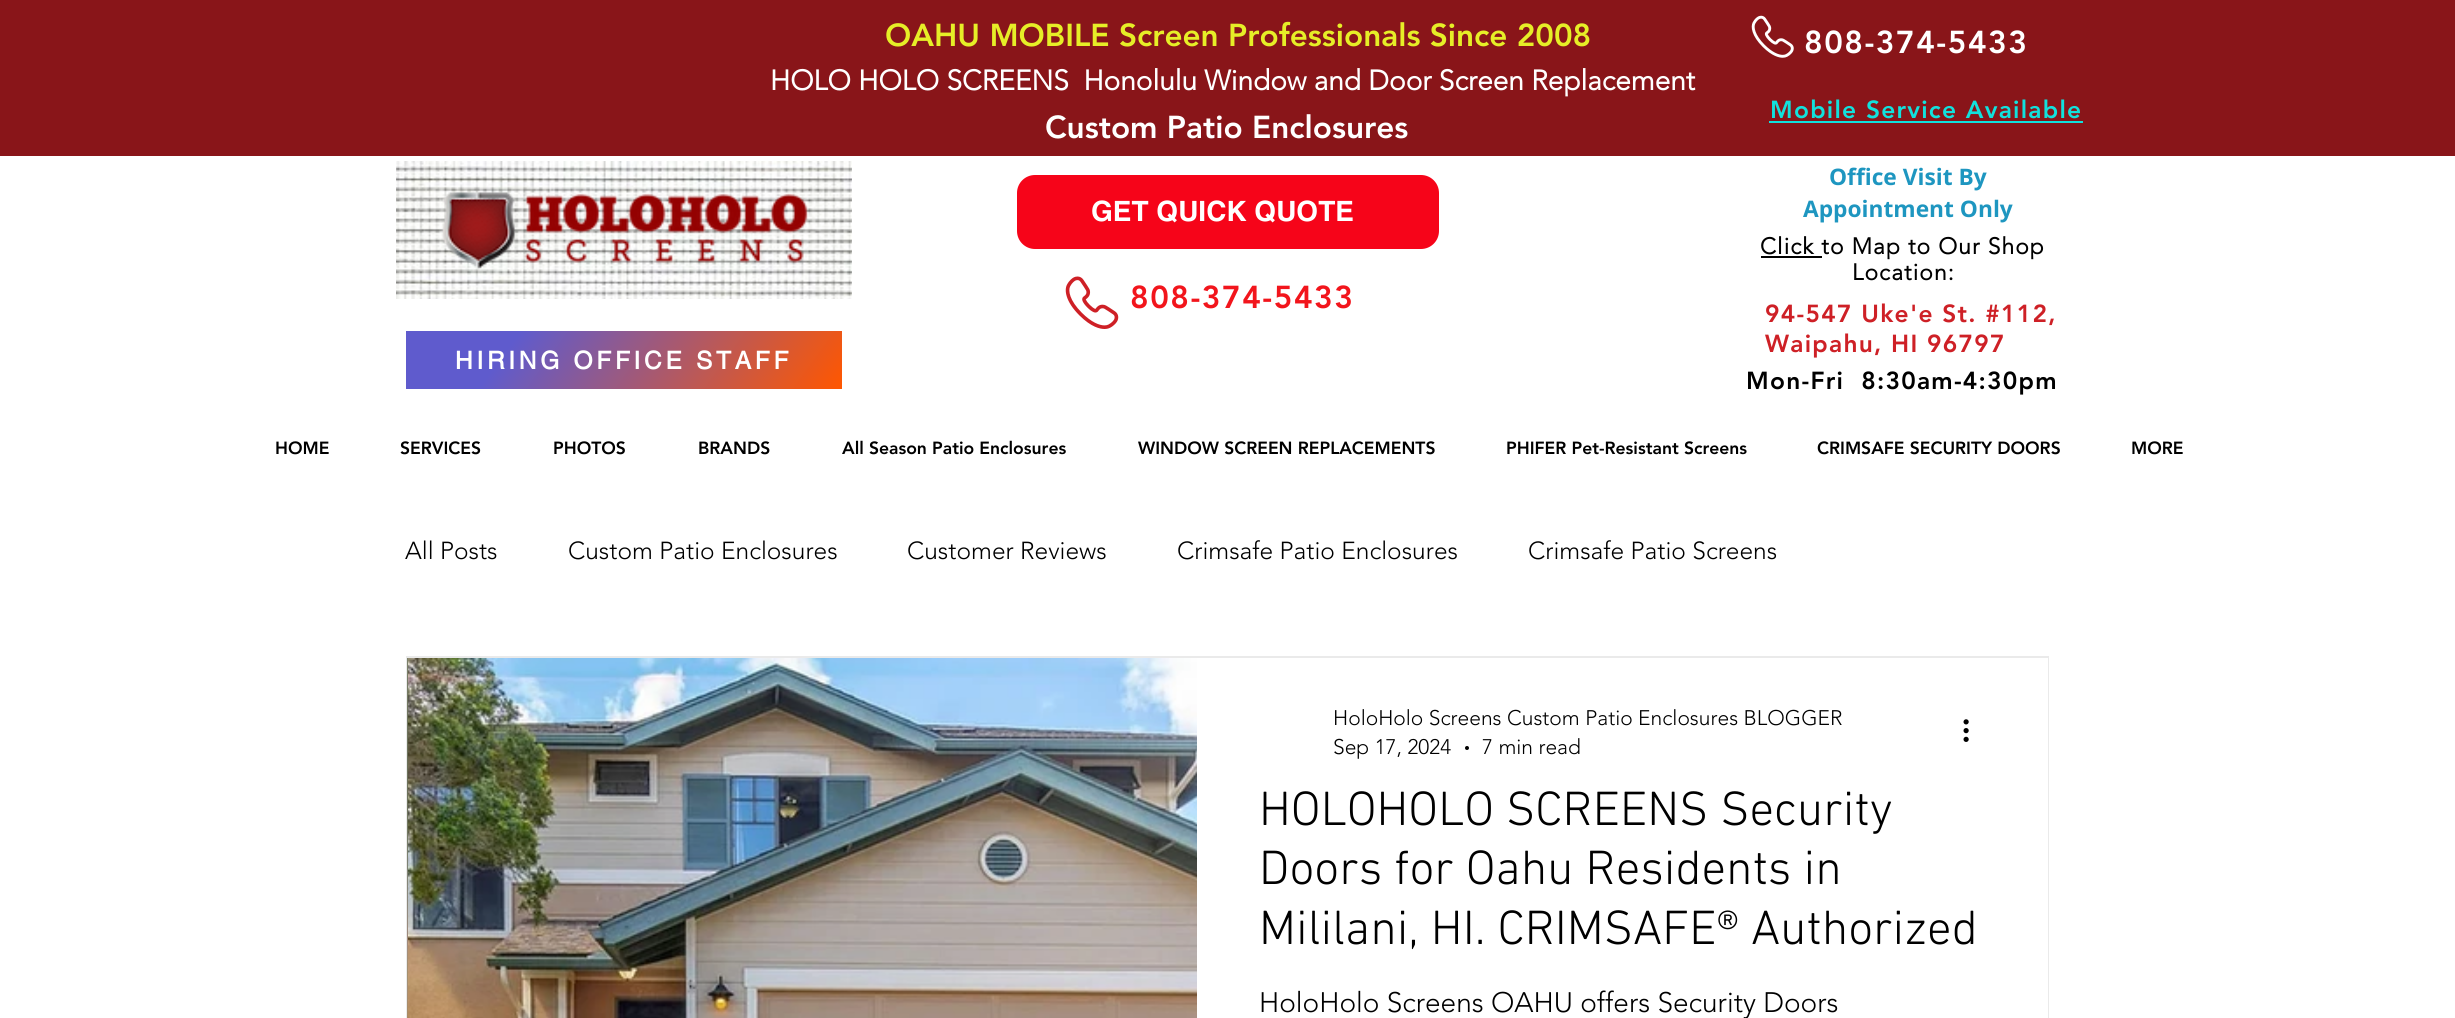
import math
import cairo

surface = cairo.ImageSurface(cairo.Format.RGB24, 2455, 1018)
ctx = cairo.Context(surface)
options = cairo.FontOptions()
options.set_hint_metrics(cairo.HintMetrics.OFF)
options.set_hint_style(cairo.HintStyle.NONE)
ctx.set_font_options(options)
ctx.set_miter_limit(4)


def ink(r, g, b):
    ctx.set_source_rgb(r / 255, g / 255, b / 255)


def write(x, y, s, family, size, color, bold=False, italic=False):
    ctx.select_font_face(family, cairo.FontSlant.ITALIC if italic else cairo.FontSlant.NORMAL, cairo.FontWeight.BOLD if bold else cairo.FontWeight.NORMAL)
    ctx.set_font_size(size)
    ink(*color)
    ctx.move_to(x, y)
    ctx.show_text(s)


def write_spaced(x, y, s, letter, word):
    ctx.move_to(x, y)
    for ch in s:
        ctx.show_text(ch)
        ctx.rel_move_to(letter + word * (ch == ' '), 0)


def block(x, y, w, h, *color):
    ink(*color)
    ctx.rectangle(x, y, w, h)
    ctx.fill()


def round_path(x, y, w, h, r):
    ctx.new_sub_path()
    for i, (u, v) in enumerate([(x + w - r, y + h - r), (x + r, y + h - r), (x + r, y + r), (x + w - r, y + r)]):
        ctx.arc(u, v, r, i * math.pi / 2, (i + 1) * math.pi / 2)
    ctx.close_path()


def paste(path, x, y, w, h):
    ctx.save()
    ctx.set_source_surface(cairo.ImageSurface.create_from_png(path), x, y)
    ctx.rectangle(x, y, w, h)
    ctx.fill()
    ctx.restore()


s1 = dict(family="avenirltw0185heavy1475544 Black", size=31.5, color=(230, 238, 39))
s2 = dict(family="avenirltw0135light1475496", size=28, color=(255, 255, 255), bold=True)
s3 = dict(family="avenirltw0185heavy1475544 Black", size=31.5, color=(255, 255, 255))
s4 = dict(family="Open Sans", size=22.75, color=(30, 150, 192), bold=True)
s5 = dict(family="helvetica", size=28, color=(255, 255, 255), bold=True)
s6 = dict(family="avenirltw0185heavy1475544 Black", size=17.5, color=(0, 0, 0))
s7 = dict(family="avenirltw0135light1475496 Light", size=24.5, color=(0, 0, 0))
s8 = dict(family="avenirltw0135light1475496 Light", size=21, color=(0, 0, 0))
s9 = dict(family="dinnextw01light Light", size=49, color=(0, 0, 0))
s10 = dict(family="avenirltw0135light1475496 Light", size=28, color=(0, 0, 0))

ink(255, 255, 255)
ctx.paint()
block(0, 0, 2455, 156, 137, 21, 25)
write(885, 46, "OAHU MOBILE Screen Professionals Since 2008", **s1)
paste("pic1.png", 1751, 15, 43, 43)
ink(255, 255, 255)
write_spaced(1804, 53, "808-374-5433", 1.5, 0)
write(770, 90, "HOLO HOLO SCREENS  Honolulu Window and Door Screen Replacement", **s2)
ctx.select_font_face("avenirltw0185heavy1475544 Black")
ctx.set_font_size(24.5)
ink(17, 225, 221)
write_spaced(1770, 118, "Mobile Service Available", 1.25, 0)
block(1769, 121, 314, 2, 17, 225, 221)
write(1045, 138, "Custom Patio Enclosures", **s3)
paste("pic2.png", 396, 161, 456, 138)
write(1829, 185, "Office Visit By", **s4)
write(1803, 217, "Appointment Only", **s4)
paste("pic3.png", 441, 192, 367, 78)
ink(246, 4, 25)
round_path(1017, 175, 422, 74, 18)
ctx.fill()
write(1091, 221, "GET QUICK QUOTE", **s5)
block(1761, 256, 61, 2, 0, 0, 0)
ctx.select_font_face("avenirltw0135light1475496", cairo.FontSlant.NORMAL, cairo.FontWeight.BOLD)
ctx.set_font_size(22.75)
write_spaced(1760, 254, "Click to Map to Our Shop", 1.1, 0)
write_spaced(1852, 280, "Location:", 1.1, 0)
paste("pic4.png", 1065, 276, 54, 53)
ctx.select_font_face("avenirltw0185heavy1475544 Black")
ctx.set_font_size(31.5)
ink(242, 21, 28)
write_spaced(1130, 308, "808-374-5433", 1.5, 0)
ctx.set_font_size(24.5)
ink(206, 32, 38)
write_spaced(1765, 322, "94-547 Uke'e St. #112,", 1.25, 0)
write_spaced(1765, 352, "Waipahu, HI 96797", 1.25, 0)
gradient = cairo.LinearGradient(468, 246, 780, 473)
gradient.add_color_stop_rgba(0.24, 0.373, 0.357, 0.804, 1)
gradient.add_color_stop_rgba(1, 1, 0.341, 0, 1)
ctx.set_source(gradient)
ctx.rectangle(406, 331, 436, 58)
ctx.fill()
ctx.select_font_face("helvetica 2", cairo.FontSlant.NORMAL, cairo.FontWeight.BOLD)
ink(255, 255, 255)
write_spaced(455, 369, "HIRING OFFICE STAFF", 3.7, 0)
ctx.select_font_face("avenirltw0185heavy1475544 Black")
ink(0, 0, 0)
write_spaced(1746, 389, "Mon-Fri  8:30am-4:30pm", 1.25, 0)
write(275, 454, "HOME", **s6)
write(400, 454, "SERVICES", **s6)
write(553, 454, "PHOTOS", **s6)
write(698, 454, "BRANDS", **s6)
write(842, 454, "All Season Patio Enclosures", **s6)
write(1138, 454, "WINDOW SCREEN REPLACEMENTS", **s6)
write(1506, 454, "PHIFER Pet-Resistant Screens", **s6)
write(1817, 454, "CRIMSAFE SECURITY DOORS", **s6)
write(2131, 454, "MORE", **s6)
write(405, 559, "All Posts", **s7)
write(568, 559, "Custom Patio Enclosures", **s7)
write(907, 559, "Customer Reviews", **s7)
write(1177, 559, "Crimsafe Patio Enclosures", **s7)
write(1528, 559, "Crimsafe Patio Screens", **s7)
ctx.rectangle(407, 657, 1641, 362)
ink(234, 234, 234)
ctx.stroke()
paste("pic5.png", 407, 658, 1, 360)
paste("pic6.png", 408, 658, 789, 360)
block(2047, 658, 1, 360, 255, 255, 255)
write(1333, 725, "HoloHolo Screens Custom Patio Enclosures BLOGGER", **s8)
write(1333, 754, "Sep 17, 2024", **s8)
ctx.new_path()
ctx.arc(1467, 748, 2, 0, 2 * math.pi)
ctx.fill()
write(1482, 754, "7 min read", **s8)
paste("pic7.png", 1963, 719, 6, 23)
write(1259, 825, "HOLOHOLO SCREENS Security", **s9)
write(1259, 884, "Doors for Oahu Residents in", **s9)
write(1259, 944, "Mililani, HI. CRIMSAFE® Authorized", **s9)
write(1259, 1012, "HoloHolo Screens OAHU offers Security Doors", **s10)
surface.write_to_png("screenshot.png")
